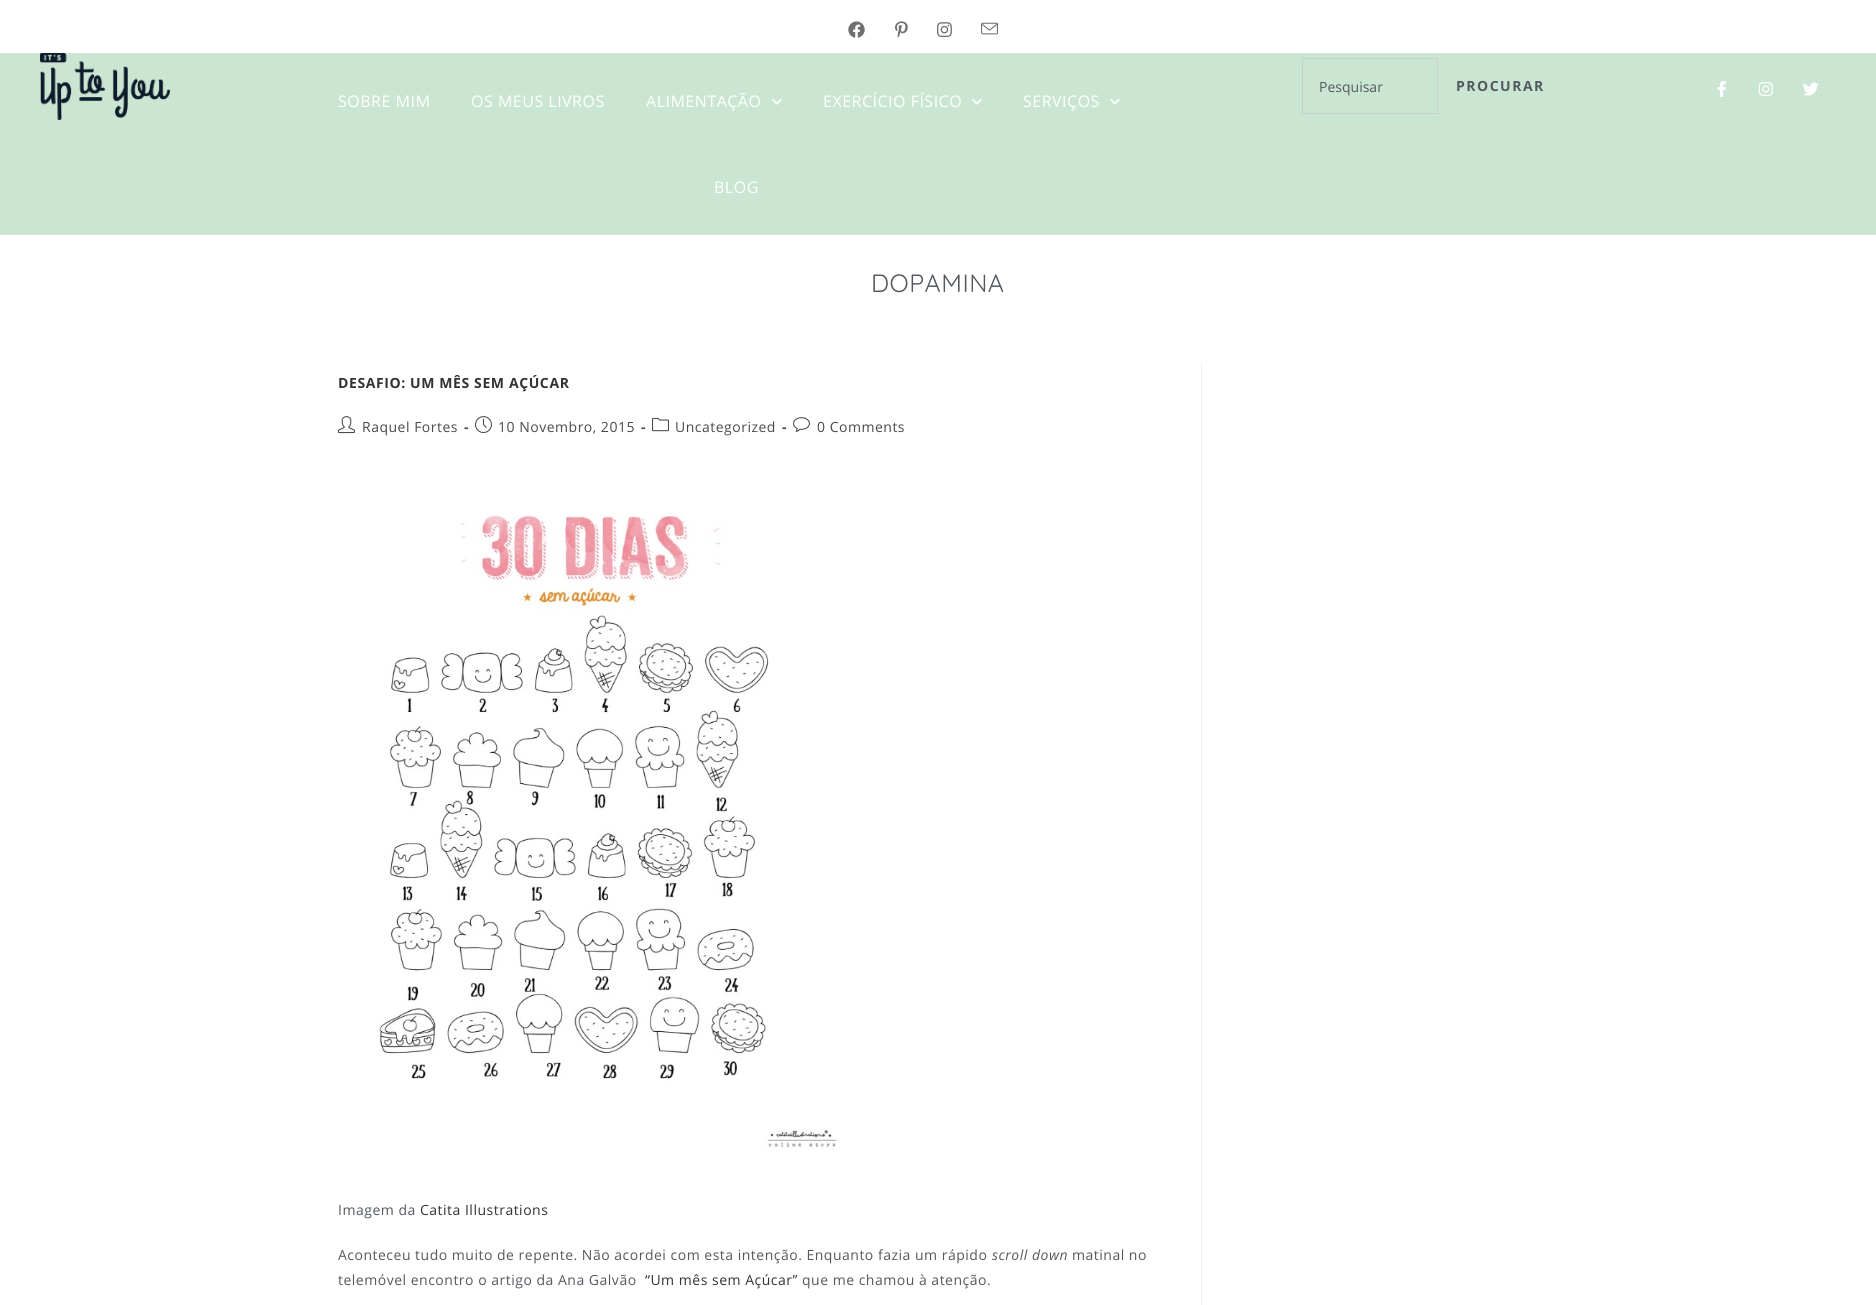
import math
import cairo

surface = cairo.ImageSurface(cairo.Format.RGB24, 1876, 1305)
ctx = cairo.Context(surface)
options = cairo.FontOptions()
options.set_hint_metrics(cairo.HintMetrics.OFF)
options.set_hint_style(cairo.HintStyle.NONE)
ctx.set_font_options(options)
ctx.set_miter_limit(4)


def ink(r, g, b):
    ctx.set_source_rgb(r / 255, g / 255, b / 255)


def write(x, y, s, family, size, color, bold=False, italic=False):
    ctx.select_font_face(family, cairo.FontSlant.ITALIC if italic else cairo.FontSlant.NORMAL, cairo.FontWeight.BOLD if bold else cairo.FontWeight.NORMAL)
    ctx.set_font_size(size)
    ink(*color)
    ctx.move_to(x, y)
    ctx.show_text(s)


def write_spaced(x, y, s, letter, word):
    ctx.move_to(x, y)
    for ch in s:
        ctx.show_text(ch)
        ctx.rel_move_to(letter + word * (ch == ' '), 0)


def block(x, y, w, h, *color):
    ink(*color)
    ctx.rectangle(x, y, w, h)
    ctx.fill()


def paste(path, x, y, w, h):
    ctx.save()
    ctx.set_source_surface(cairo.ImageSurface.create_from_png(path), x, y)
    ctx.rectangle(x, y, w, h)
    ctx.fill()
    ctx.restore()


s1 = dict(family="Open Sans", size=14, color=(84, 89, 95))

ink(255, 255, 255)
ctx.paint()
paste("pic1.png", 848, 21, 17, 17)
paste("pic2.png", 895, 21, 13, 17)
paste("pic3.png", 937, 22, 15, 16)
paste("pic4.png", 981, 22, 17, 13)
block(0, 53, 1876, 182, 202, 230, 210)
paste("pic5.png", 40, 53, 130, 67)
ctx.rectangle(1302.5, 58.5, 135, 55)
ink(205, 205, 205)
ctx.set_line_width(1)
ctx.stroke()
write(1319, 92, "Pesquisar", **s1)
ctx.select_font_face("Open Sans", cairo.FontSlant.NORMAL, cairo.FontWeight.BOLD)
write_spaced(1456, 91, "PROCURAR", 1.5, 0)
paste("pic6.png", 1717, 81, 9, 16)
paste("pic7.png", 1758, 82, 15, 14)
paste("pic8.png", 1803, 82, 16, 14)
ctx.select_font_face("Open Sans")
ctx.set_font_size(16)
ink(255, 255, 255)
write_spaced(338, 107, "SOBRE MIM", 0.5, 0)
write_spaced(471, 107, "OS MEUS LIVROS", 0.5, 0)
write_spaced(646, 107, "ALIMENTAÇÃO", 0.5, 0)
paste("pic9.png", 772, 99, 10, 6)
write_spaced(823, 107, "EXERCÍCIO FÍSICO", 0.5, 0)
paste("pic9.png", 972, 99, 10, 6)
write_spaced(1023, 107, "SERVIÇOS", 0.5, 0)
paste("pic9.png", 1110, 99, 10, 6)
write_spaced(714, 193, "BLOG", 0.5, 0)
ctx.select_font_face("Quicksand")
ctx.set_font_size(25)
ink(84, 89, 95)
write_spaced(871, 292, "DOPAMINA", 0.5, 0)
block(1201, 362, 1, 943, 241, 241, 241)
ctx.select_font_face("Open Sans", cairo.FontSlant.NORMAL, cairo.FontWeight.BOLD)
ctx.set_font_size(14)
ink(51, 51, 51)
write_spaced(338, 388, "DESAFIO: UM MÊS SEM AÇÚCAR", 0.6, 0)
paste("pic10.png", 338, 416, 17, 18)
ctx.select_font_face("Open Sans")
ink(74, 74, 74)
write_spaced(362, 432, "Raquel Fortes", 0.5, 0)
ctx.select_font_face("Open Sans", cairo.FontSlant.NORMAL, cairo.FontWeight.BOLD)
write_spaced(464, 432, "-", 0.5, 0)
paste("pic11.png", 475, 416, 17, 18)
ctx.select_font_face("Open Sans")
write_spaced(498, 432, "10 Novembro, 2015", 0.5, 0)
ctx.select_font_face("Open Sans", cairo.FontSlant.NORMAL, cairo.FontWeight.BOLD)
write_spaced(641, 432, "-", 0.5, 0)
paste("pic12.png", 652, 417, 17, 15)
ctx.select_font_face("Open Sans")
write_spaced(675, 432, "Uncategorized", 0.5, 0)
ctx.select_font_face("Open Sans", cairo.FontSlant.NORMAL, cairo.FontWeight.BOLD)
write_spaced(782, 432, "-", 0.5, 0)
paste("pic13.png", 793, 417, 17, 15)
ctx.select_font_face("Open Sans")
write_spaced(817, 432, "0 Comments", 0.5, 0)
paste("pic14.png", 379, 512, 458, 638)
ink(84, 89, 95)
write_spaced(338, 1215, "Imagem da", 0.5, 0)
ink(51, 51, 51)
write_spaced(420, 1215, "Catita Illustrations", 0.5, 0)
ink(84, 89, 95)
write_spaced(338, 1260, "Aconteceu tudo muito de repente. Não acordei com esta intenção. Enquanto fazia um rápido", 0.5, 0)
ctx.select_font_face("Open Sans", cairo.FontSlant.ITALIC)
write_spaced(992, 1260, "scroll down", 0.5, 0)
ctx.select_font_face("Open Sans")
write_spaced(1072, 1260, "matinal no", 0.5, 0)
write_spaced(338, 1285, "telemóvel encontro o artigo da Ana Galvão", 0.5, 0)
ink(51, 51, 51)
write_spaced(645, 1285, "“Um mês sem Açúcar”", 0.5, 0)
ink(84, 89, 95)
write_spaced(802, 1285, "que me chamou à atenção.", 0.5, 0)
surface.write_to_png("screenshot.png")
